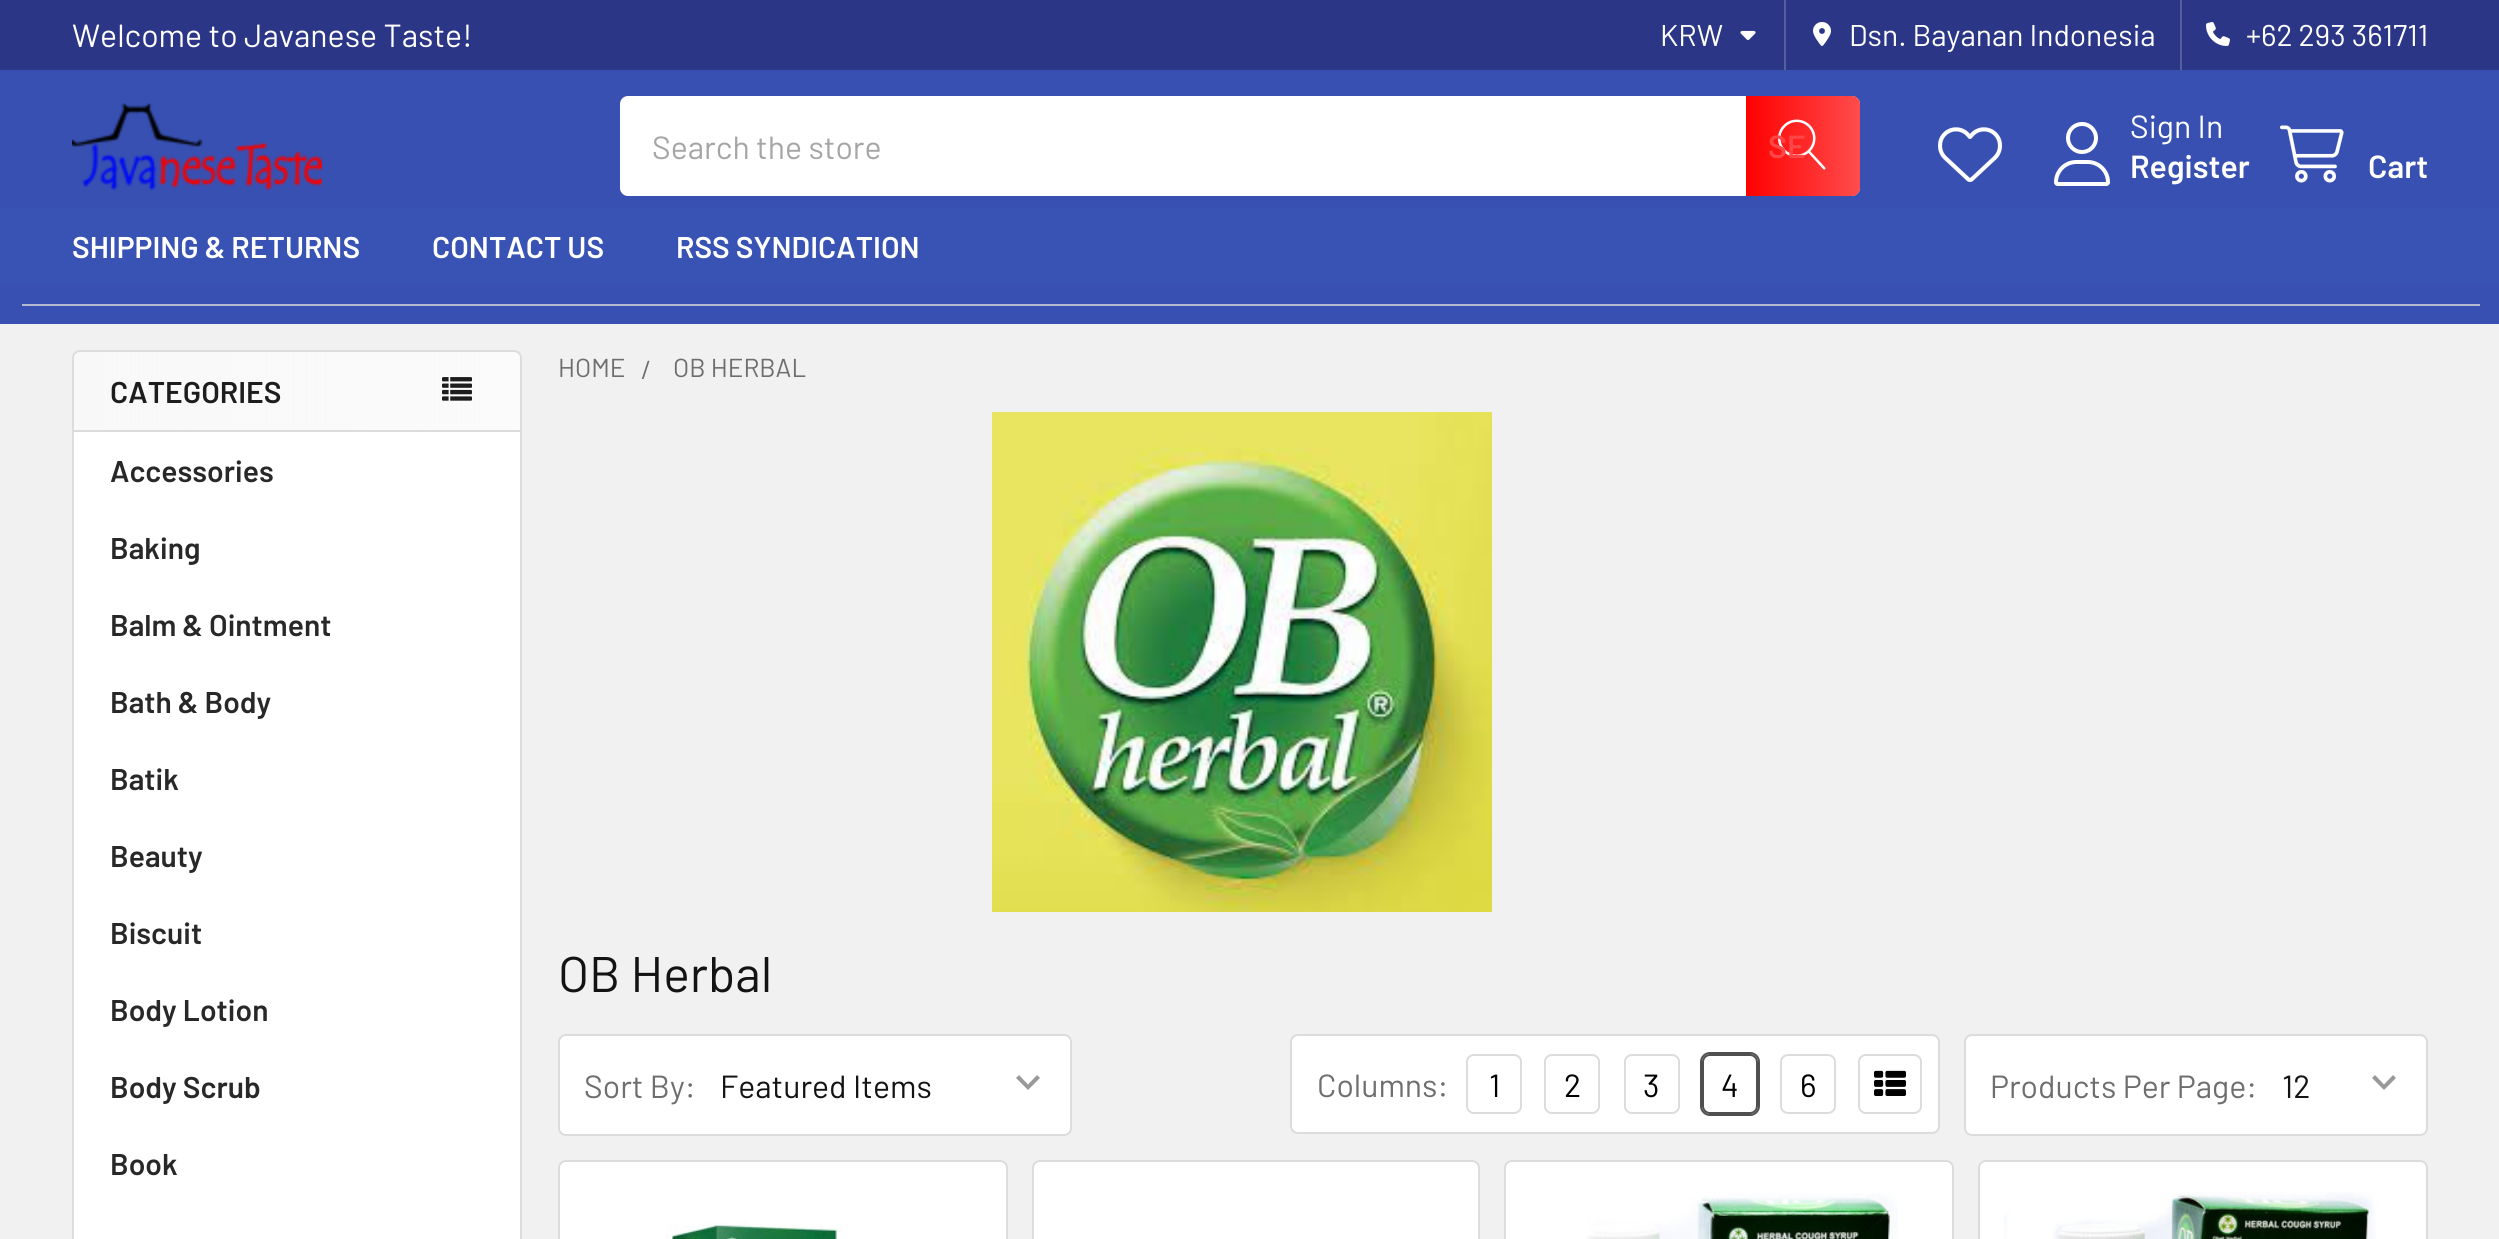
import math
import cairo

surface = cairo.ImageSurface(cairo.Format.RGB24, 2499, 1239)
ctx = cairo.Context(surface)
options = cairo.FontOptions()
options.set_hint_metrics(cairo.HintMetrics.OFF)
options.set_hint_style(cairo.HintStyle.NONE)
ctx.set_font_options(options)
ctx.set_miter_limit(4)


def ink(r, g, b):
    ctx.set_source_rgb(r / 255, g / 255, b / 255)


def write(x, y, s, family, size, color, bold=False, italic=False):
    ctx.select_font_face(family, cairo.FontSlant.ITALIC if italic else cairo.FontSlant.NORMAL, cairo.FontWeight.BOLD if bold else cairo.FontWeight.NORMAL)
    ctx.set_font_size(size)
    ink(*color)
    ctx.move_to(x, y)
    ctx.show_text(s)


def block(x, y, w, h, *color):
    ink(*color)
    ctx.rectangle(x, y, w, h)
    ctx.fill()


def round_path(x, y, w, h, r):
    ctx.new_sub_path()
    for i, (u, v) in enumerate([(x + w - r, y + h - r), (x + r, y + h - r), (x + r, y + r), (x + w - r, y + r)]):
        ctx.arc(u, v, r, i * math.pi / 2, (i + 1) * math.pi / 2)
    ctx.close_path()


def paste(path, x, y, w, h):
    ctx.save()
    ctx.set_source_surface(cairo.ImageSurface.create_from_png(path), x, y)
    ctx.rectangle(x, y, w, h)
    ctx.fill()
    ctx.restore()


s1 = dict(family="Barlow", size=32, color=(255, 255, 255))
s2 = dict(family="Barlow", size=30, color=(255, 255, 255))
s3 = dict(family="Barlow", size=32, color=(165, 165, 165))
s4 = dict(family="Barlow SemiBold", size=32, color=(255, 69, 69))
s5 = dict(family="Barlow SemiBold", size=32, color=(255, 255, 255))
s6 = dict(family="Barlow SemiBold", size=30, color=(255, 255, 255))
s7 = dict(family="Barlow SemiBold", size=30, color=(29, 29, 29))
s8 = dict(family="Barlow SemiBold", size=30, color=(40, 40, 40))
s9 = dict(family="Barlow", size=26, color=(110, 110, 110))
s10 = dict(family="Barlow", size=50, color=(19, 19, 19))
s11 = dict(family="Barlow", size=32, color=(110, 110, 110))
s12 = dict(family="Barlow", size=32, color=(19, 19, 19))
s13 = dict(family="Barlow", size=32, color=(0, 0, 0))

ink(241, 241, 242)
ctx.paint()
block(0, 72, 2499, 252, 55, 80, 178)
block(0, 0, 2499, 70, 43, 54, 135)
block(0, 70, 2499, 2, 56, 79, 178)
write(72, 47, "Welcome to Javanese Taste!", **s1)
write(1660, 46, "KRW", **s2)
paste("pic1.png", 1740, 30, 16, 10)
block(1784, 0, 2, 70, 85, 94, 159)
paste("pic2.png", 1813, 22, 18, 24)
write(1849, 46, "Dsn. Bayanan Indonesia", **s2)
block(2180, 0, 2, 70, 85, 94, 159)
paste("pic3.png", 2206, 22, 24, 24)
write(2246, 46, "+62 293 361711", **s2)
paste("pic4.png", 72, 103, 250, 88)
round_path(620, 96, 1240, 100, 8)
ctx.fill()
gradient = cairo.LinearGradient(1746, 146, 1860, 146)
gradient.add_color_stop_rgba(0, 1, 0, 0, 1)
gradient.add_color_stop_rgba(1, 1, 0, 0, 0.7)
ctx.set_source(gradient)
ctx.new_path()
ctx.move_to(1746, 96)
ctx.line_to(1852, 96)
ctx.curve_to(1856.5, 96, 1860, 99.5, 1860, 104)
ctx.line_to(1860, 188)
ctx.curve_to(1860, 192.5, 1856.5, 196, 1852, 196)
ctx.line_to(1746, 196)
ctx.close_path()
ctx.fill()
paste("pic5.png", 1778, 119, 48, 51)
write(652, 159, "Search the store", **s3)
write(1768, 158, "SE", **s4)
paste("pic6.png", 1938, 127, 64, 55)
paste("pic7.png", 2054, 122, 56, 64)
write(2130, 138, "Sign In", **s1)
write(2130, 178, "Register", **s5)
paste("pic8.png", 2280, 125, 64, 58)
write(2368, 178, "Cart", **s5)
block(0, 208, 2499, 76, 56, 83, 180)
write(72, 258, "SHIPPING & RETURNS", **s6)
write(432, 258, "CONTACT US", **s6)
write(676, 258, "RSS SYNDICATION", **s6)
block(22, 304, 2458, 2, 180, 186, 209)
ink(255, 255, 255)
round_path(72, 350, 450, 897, 8)
ctx.fill()
gradient = cairo.LinearGradient(72, 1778, 522, 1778)
gradient.add_color_stop_rgba(0, 0.973, 0.973, 0.973, 1)
gradient.add_color_stop_rgba(1, 0.973, 0.973, 0.973, 0.6)
ctx.set_source(gradient)
round_path(72, 350, 450, 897, 8)
ctx.fill()
ctx.new_path()
ctx.move_to(80, 351)
ctx.line_to(514, 351)
ctx.curve_to(518, 351, 521, 354, 521, 358)
ctx.line_to(521, 431)
ctx.line_to(73, 431)
ctx.line_to(73, 358)
ctx.curve_to(73, 354, 76, 351, 80, 351)
ctx.close_path()
ink(220, 220, 220)
ctx.stroke()
write(110, 403, "CATEGORIES", **s7)
paste("pic9.png", 442, 377, 30, 24)
block(74, 432, 446, 807, 255, 255, 255)
ink(220, 220, 220)
ctx.set_fill_rule(cairo.FillRule.EVEN_ODD)
ctx.new_path()
ctx.move_to(72, 432)
ctx.line_to(522, 432)
ctx.line_to(522, 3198)
ctx.curve_to(522, 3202, 518, 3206, 514, 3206)
ctx.line_to(80, 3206)
ctx.curve_to(76, 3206, 72, 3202, 72, 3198)
ctx.close_path()
ctx.move_to(74, 432)
ctx.line_to(520, 432)
ctx.line_to(520, 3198)
ctx.curve_to(520, 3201, 517, 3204, 514, 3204)
ctx.line_to(80, 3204)
ctx.curve_to(77, 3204, 74, 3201, 74, 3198)
ctx.close_path()
ctx.fill()
write(110, 482, "Accessories", **s8)
write(110, 559, "Baking", **s8)
write(110, 636, "Balm & Ointment", **s8)
write(110, 713, "Bath & Body", **s8)
write(110, 790, "Batik", **s8)
write(110, 867, "Beauty", **s8)
write(110, 944, "Biscuit", **s8)
write(110, 1021, "Body Lotion", **s8)
write(110, 1098, "Body Scrub", **s8)
write(110, 1175, "Book", **s8)
write(558, 377, "HOME", **s9)
write(641, 379, "/", **s9)
write(673, 377, "OB HERBAL", **s9)
paste("pic10.png", 992, 412, 500, 500)
write(558, 992, "OB Herbal", **s10)
ink(255, 255, 255)
round_path(559, 1035, 512, 100, 7)
ctx.fill_preserve()
ink(220, 220, 220)
ctx.stroke()
write(584, 1098, "Sort By:", **s11)
ink(153, 153, 153)
ctx.set_fill_rule(cairo.FillRule.WINDING)
ctx.new_path()
ctx.move_to(1037, 1075)
ctx.line_to(1028, 1084.5)
ctx.line_to(1019, 1075)
ctx.line_to(1016, 1078)
ctx.line_to(1028, 1090)
ctx.line_to(1040, 1078)
ctx.close_path()
ctx.fill()
write(720, 1098, "Featured Items", **s12)
ink(255, 255, 255)
round_path(1291, 1035, 648, 98, 7)
ctx.fill_preserve()
ink(220, 220, 220)
ctx.stroke()
write(1317, 1097, "Columns:", **s11)
round_path(1467, 1055, 54, 58, 7)
ink(220, 220, 220)
ctx.stroke()
write(1489, 1097, "1", **s13)
round_path(1545, 1055, 54, 58, 7)
ink(220, 220, 220)
ctx.stroke()
write(1564, 1097, "2", **s13)
round_path(1625, 1055, 54, 58, 7)
ink(220, 220, 220)
ctx.stroke()
write(1643, 1097, "3", **s13)
round_path(1701, 1053, 58, 62, 9)
ink(79, 79, 79)
ctx.stroke()
round_path(1703, 1055, 54, 58, 7)
ctx.stroke()
write(1721, 1097, "4", **s13)
round_path(1781, 1055, 54, 58, 7)
ink(220, 220, 220)
ctx.stroke()
write(1800, 1097, "6", **s13)
round_path(1859, 1055, 62, 58, 7)
ink(220, 220, 220)
ctx.stroke()
paste("pic11.png", 1874, 1070, 32, 26)
ink(255, 255, 255)
round_path(1965, 1035, 462, 100, 7)
ctx.fill_preserve()
ink(220, 220, 220)
ctx.stroke()
write(1990, 1098, "Products Per Page:", **s11)
ink(153, 153, 153)
ctx.new_path()
ctx.move_to(2393, 1075)
ctx.line_to(2384, 1084.5)
ctx.line_to(2375, 1075)
ctx.line_to(2372, 1078)
ctx.line_to(2384, 1090)
ctx.line_to(2396, 1078)
ctx.close_path()
ctx.fill()
write(2282, 1098, "12", **s12)
ink(255, 255, 255)
round_path(559, 1161, 448, 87, 7)
ctx.fill_preserve()
ink(220, 220, 220)
ctx.stroke()
paste("pic12.png", 666, 1222, 177, 17)
ink(255, 255, 255)
round_path(1033, 1161, 446, 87, 7)
ctx.fill_preserve()
ink(220, 220, 220)
ctx.stroke()
ink(255, 255, 255)
round_path(1505, 1161, 448, 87, 7)
ctx.fill_preserve()
ink(220, 220, 220)
ctx.stroke()
paste("pic13.png", 1586, 1193, 312, 46)
ink(255, 255, 255)
round_path(1979, 1161, 448, 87, 7)
ctx.fill_preserve()
ink(220, 220, 220)
ctx.stroke()
paste("pic14.png", 2004, 1192, 372, 47)
surface.write_to_png("screenshot.png")
